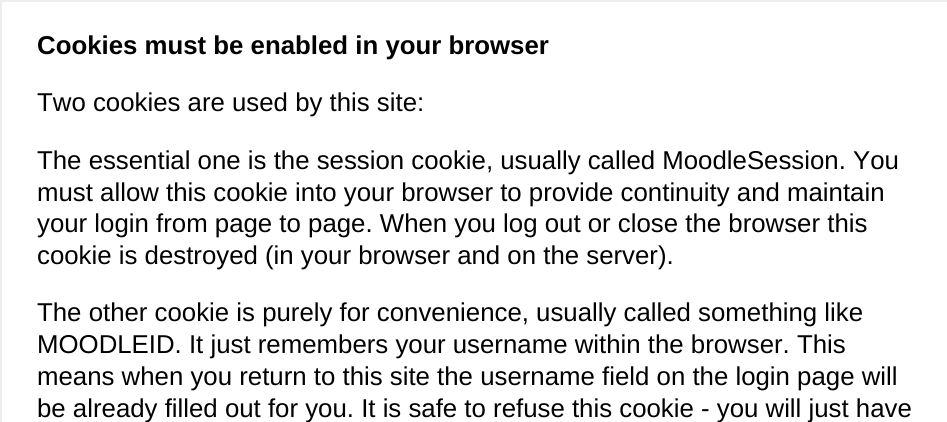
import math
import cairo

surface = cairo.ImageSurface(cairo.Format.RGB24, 947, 422)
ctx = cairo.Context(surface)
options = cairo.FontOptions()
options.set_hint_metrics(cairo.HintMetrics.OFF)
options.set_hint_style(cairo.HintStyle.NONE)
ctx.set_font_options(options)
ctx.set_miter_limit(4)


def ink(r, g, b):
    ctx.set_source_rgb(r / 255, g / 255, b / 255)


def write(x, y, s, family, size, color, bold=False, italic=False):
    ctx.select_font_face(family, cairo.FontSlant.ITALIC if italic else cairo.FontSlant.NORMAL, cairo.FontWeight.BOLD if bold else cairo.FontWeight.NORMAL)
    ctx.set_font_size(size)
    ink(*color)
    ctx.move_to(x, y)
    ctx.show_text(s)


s1 = dict(family="Liberation Sans", size=25.8, color=(0, 0, 0), bold=True)
s2 = dict(family="Liberation Sans", size=25.8, color=(0, 0, 0))

ink(255, 255, 255)
ctx.paint()
ctx.rectangle(1, 1, 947, 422)
ink(238, 238, 238)
ctx.stroke()
write(37, 54, "Cookies must be enabled in your browser", **s1)
write(37, 111, "Two cookies are used by this site:", **s2)
write(37, 169, "The essential one is the session cookie, usually called MoodleSession. You", **s2)
write(37, 201, "must allow this cookie into your browser to provide continuity and maintain", **s2)
write(37, 232, "your login from page to page. When you log out or close the browser this", **s2)
write(37, 264, "cookie is destroyed (in your browser and on the server).", **s2)
write(37, 321, "The other cookie is purely for convenience, usually called something like", **s2)
write(37, 353, "MOODLEID. It just remembers your username within the browser. This", **s2)
write(37, 385, "means when you return to this site the username field on the login page will", **s2)
write(37, 417, "be already filled out for you. It is safe to refuse this cookie - you will just have", **s2)
surface.write_to_png("screenshot.png")
